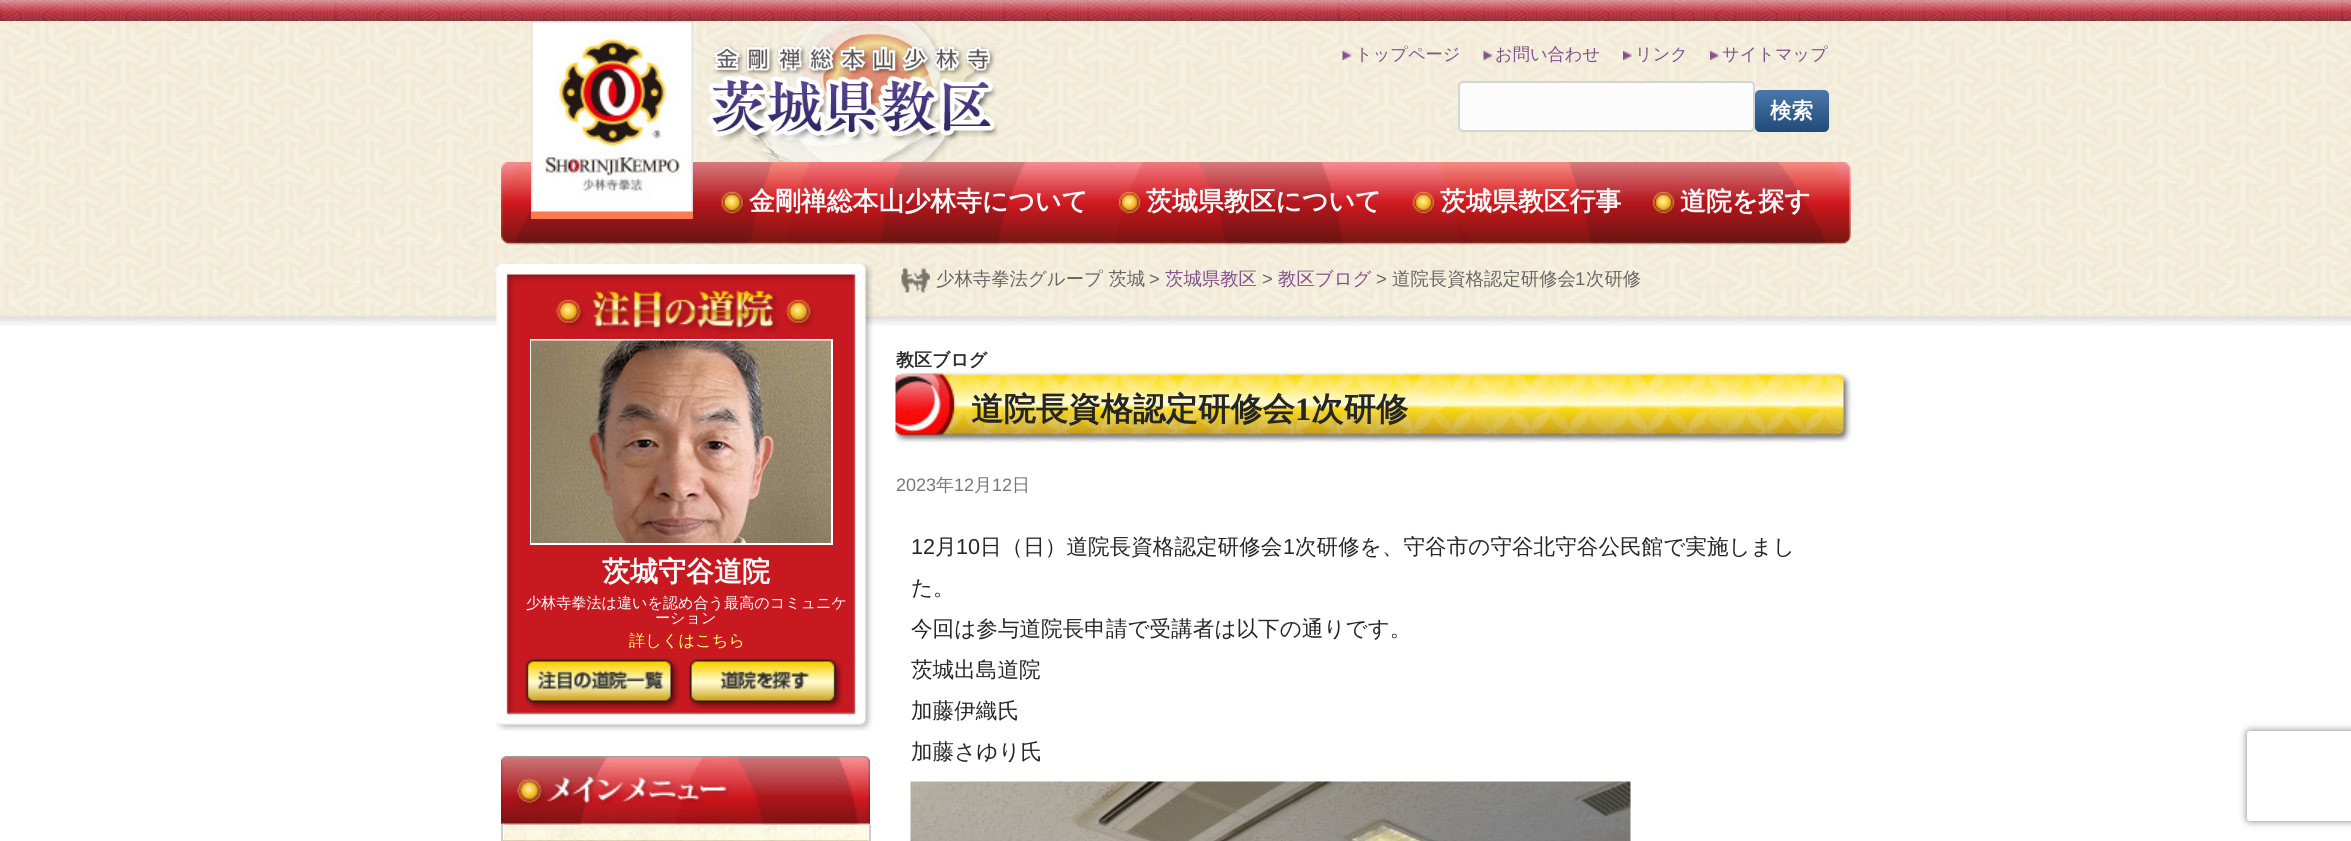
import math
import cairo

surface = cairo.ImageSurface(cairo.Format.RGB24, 2351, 841)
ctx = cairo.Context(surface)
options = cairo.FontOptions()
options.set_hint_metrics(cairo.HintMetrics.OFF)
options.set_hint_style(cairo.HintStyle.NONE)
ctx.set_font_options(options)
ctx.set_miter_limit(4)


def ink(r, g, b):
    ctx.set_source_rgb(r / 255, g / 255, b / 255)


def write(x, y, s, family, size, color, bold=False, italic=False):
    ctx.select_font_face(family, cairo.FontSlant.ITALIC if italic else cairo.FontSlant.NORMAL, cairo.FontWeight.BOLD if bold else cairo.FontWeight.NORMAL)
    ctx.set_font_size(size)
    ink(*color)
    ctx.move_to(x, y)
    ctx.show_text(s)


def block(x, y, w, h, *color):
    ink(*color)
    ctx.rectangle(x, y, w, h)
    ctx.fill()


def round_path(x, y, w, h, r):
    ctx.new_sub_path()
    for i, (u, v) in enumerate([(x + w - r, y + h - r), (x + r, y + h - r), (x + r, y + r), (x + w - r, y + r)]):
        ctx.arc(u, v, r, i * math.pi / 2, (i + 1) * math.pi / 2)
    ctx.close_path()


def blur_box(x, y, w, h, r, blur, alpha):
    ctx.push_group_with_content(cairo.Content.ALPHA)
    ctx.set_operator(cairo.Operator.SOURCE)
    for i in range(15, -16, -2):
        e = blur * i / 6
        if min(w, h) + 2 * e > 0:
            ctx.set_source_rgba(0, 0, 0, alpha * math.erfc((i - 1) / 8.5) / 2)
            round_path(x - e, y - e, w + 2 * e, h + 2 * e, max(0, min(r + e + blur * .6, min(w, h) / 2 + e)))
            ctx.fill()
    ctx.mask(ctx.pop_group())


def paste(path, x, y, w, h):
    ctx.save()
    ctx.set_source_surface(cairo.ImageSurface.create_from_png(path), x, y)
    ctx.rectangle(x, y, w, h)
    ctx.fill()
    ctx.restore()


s1 = dict(family="WenQuanYi Zen Hei Medium", size=17.25, color=(130, 80, 140))
s2 = dict(family="WenQuanYi Zen Hei", size=21.6, color=(255, 255, 255), bold=True)
s3 = dict(family="WenQuanYi Zen Hei", size=25.9, color=(249, 249, 249), bold=True)
s4 = dict(family="WenQuanYi Zen Hei Medium", size=18.4, color=(102, 102, 102))
s5 = dict(family="Liberation Sans", size=18.4, color=(102, 102, 102))
s6 = dict(family="WenQuanYi Zen Hei Medium", size=18.4, color=(130, 80, 140))
s7 = dict(family="WenQuanYi Zen Hei", size=28, color=(255, 255, 255), bold=True)
s8 = dict(family="WenQuanYi Zen Hei Medium", size=15.1, color=(255, 255, 255))
s9 = dict(family="WenQuanYi Zen Hei Medium", size=16.25, color=(255, 255, 102))
s10 = dict(family="WenQuanYi Zen Hei", size=18, color=(43, 43, 43), bold=True)
s11 = dict(family="WenQuanYi Zen Hei", size=32.4, color=(37, 37, 37), bold=True)
s12 = dict(family="Liberation Serif", size=32.4, color=(37, 37, 37), bold=True)
s13 = dict(family="Liberation Sans", size=18, color=(118, 118, 118))
s14 = dict(family="WenQuanYi Zen Hei Medium", size=18, color=(118, 118, 118))
s15 = dict(family="Liberation Sans", size=21.6, color=(37, 37, 37))
s16 = dict(family="WenQuanYi Zen Hei Medium", size=21.6, color=(37, 37, 37))

ink(255, 255, 255)
ctx.paint()
paste("pic1.png", 0, 0, 2351, 21)
paste("pic2.png", 0, 21, 2351, 305)
paste("pic9.png", 501, 162, 1350, 83)
paste("pic3.png", 531, 21, 162, 198)
paste("pic4.png", 708, 21, 291, 141)
paste("pic5.png", 1342, 51, 10, 9)
write(1355, 60, "トップページ", **s1)
paste("pic6.png", 1483, 51, 10, 9)
write(1495, 60, "お問い合わせ", **s1)
paste("pic7.png", 1623, 51, 9, 9)
write(1635, 60, "リンク", **s1)
paste("pic8.png", 1710, 51, 9, 9)
write(1722, 60, "サイトマップ", **s1)
ink(252, 252, 252)
round_path(1459, 82, 295, 49, 4)
ctx.fill_preserve()
ink(212, 212, 215)
ctx.stroke()
gradient = cairo.LinearGradient(1792, 90, 1792, 132)
gradient.add_color_stop_rgba(0, 0.29, 0.471, 0.671, 1)
gradient.add_color_stop_rgba(1, 0.129, 0.29, 0.471, 1)
ctx.set_source(gradient)
round_path(1755, 90, 74, 42, 5)
ctx.fill()
write(1770, 118, "検索", **s2)
paste("pic10.png", 721, 191, 24, 25)
write(749, 210, "金剛禅総本山少林寺について", **s3)
paste("pic11.png", 1118, 191, 25, 25)
write(1146, 210, "茨城県教区について", **s3)
paste("pic12.png", 1412, 191, 25, 25)
write(1440, 210, "茨城県教区行事", **s3)
paste("pic13.png", 1652, 191, 25, 25)
write(1680, 210, "道院を探す", **s3)
paste("pic14.png", 901, 268, 29, 25)
write(936, 285, "少林寺拳法グループ 茨城", **s4)
write(1149, 285, ">", **s5)
write(1165, 285, "茨城県教区", **s6)
write(1262, 285, ">", **s5)
write(1278, 285, "教区ブログ", **s6)
write(1376, 285, ">", **s5)
write(1392, 285, "道院長資格認定研修会", **s4)
write(1575, 285, "1", **s5)
write(1586, 285, "次研修", **s4)
paste("pic15.png", 496, 264, 377, 467)
ctx.rectangle(531, 340, 301, 204)
ink(255, 255, 255)
ctx.stroke()
paste("pic16.png", 531, 340, 300, 203)
write(602, 581, "茨城守谷道院", **s7)
write(526, 608, "少林寺拳法は違いを認め合う最高のコミュニケ", **s8)
write(655, 623, "ーション", **s8)
write(629, 646, "詳しくはこちら", **s9)
paste("pic17.png", 525, 658, 155, 52)
paste("pic18.png", 688, 658, 155, 52)
paste("pic19.png", 501, 756, 369, 69)
paste("pic20.png", 503, 825, 366, 16)
block(869, 825, 2, 16, 204, 204, 204)
block(501, 825, 2, 16, 204, 204, 204)
paste("pic21.png", 502, 840, 367, 1)
write(896, 366, "教区ブログ", **s10)
paste("pic22.png", 895, 372, 957, 71)
write(971, 420, "道院長資格認定研修会", **s11)
write(1295, 420, "1", **s12)
write(1311, 420, "次研修", **s11)
write(896, 491, "2023", **s13)
write(936, 491, "年", **s14)
write(954, 491, "12", **s13)
write(974, 491, "月", **s14)
write(992, 491, "12", **s13)
write(1012, 491, "日", **s14)
write(911, 554, "12", **s15)
write(935, 554, "月", **s16)
write(956, 554, "10", **s15)
write(980, 554, "日（日）道院長資格認定研修会", **s16)
write(1283, 554, "1", **s15)
write(1295, 554, "次研修を、守谷市の守谷北守谷公民館で実施しまし", **s16)
write(911, 595, "た。", **s16)
write(911, 636, "今回は参与道院長申請で受講者は以下の通りです。", **s16)
write(911, 677, "茨城出島道院", **s16)
write(911, 718, "加藤伊織氏", **s16)
write(911, 759, "加藤さゆり氏", **s16)
paste("pic23.png", 910, 781, 721, 60)
ctx.save()
ctx.set_fill_rule(cairo.FillRule.EVEN_ODD)
ctx.new_path()
ctx.move_to(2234, 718)
ctx.line_to(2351, 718)
ctx.line_to(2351, 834)
ctx.line_to(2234, 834)
ctx.close_path()
ctx.move_to(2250, 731)
ctx.line_to(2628, 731)
ctx.curve_to(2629.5, 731, 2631, 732.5, 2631, 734)
ctx.line_to(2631, 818)
ctx.curve_to(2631, 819.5, 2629.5, 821, 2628, 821)
ctx.line_to(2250, 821)
ctx.curve_to(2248.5, 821, 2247, 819.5, 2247, 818)
ctx.line_to(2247, 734)
ctx.curve_to(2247, 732.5, 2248.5, 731, 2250, 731)
ctx.close_path()
ctx.clip()
ink(128, 128, 128)
blur_box(2247, 731, 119, 90, 3, 4, 1)
ctx.restore()
surface.write_to_png("screenshot.png")
